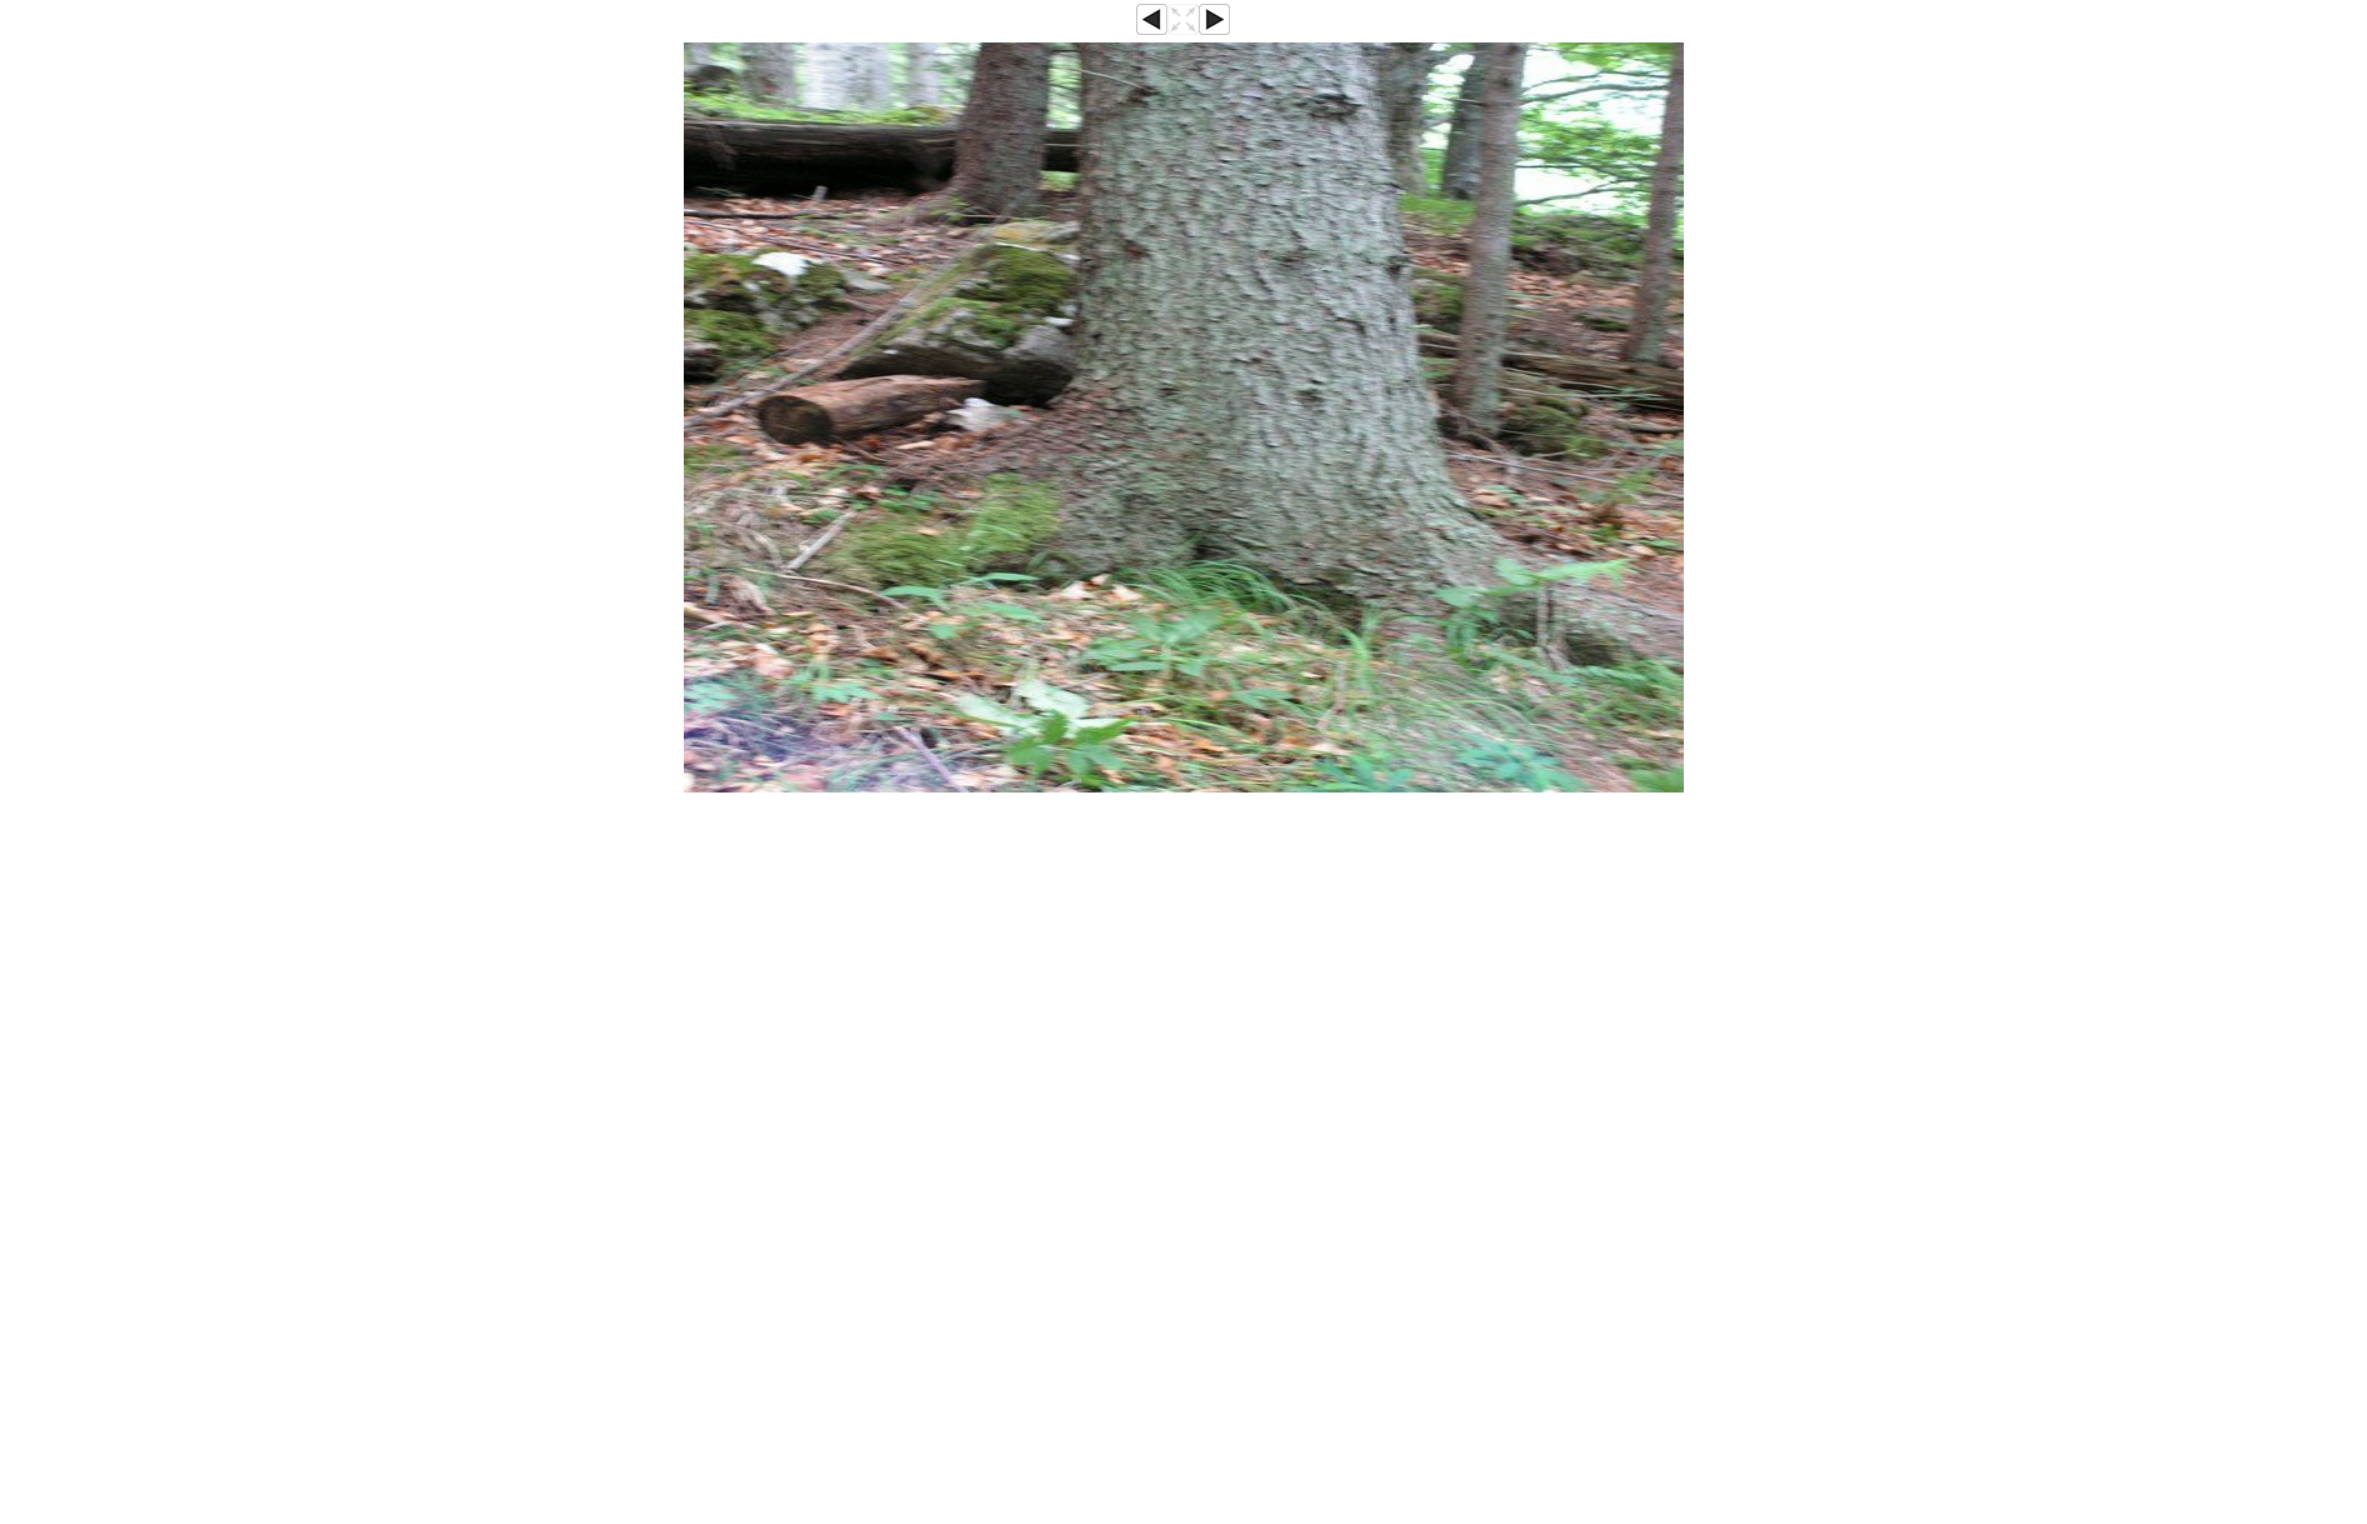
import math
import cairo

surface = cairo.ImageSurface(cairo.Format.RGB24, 2367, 1524)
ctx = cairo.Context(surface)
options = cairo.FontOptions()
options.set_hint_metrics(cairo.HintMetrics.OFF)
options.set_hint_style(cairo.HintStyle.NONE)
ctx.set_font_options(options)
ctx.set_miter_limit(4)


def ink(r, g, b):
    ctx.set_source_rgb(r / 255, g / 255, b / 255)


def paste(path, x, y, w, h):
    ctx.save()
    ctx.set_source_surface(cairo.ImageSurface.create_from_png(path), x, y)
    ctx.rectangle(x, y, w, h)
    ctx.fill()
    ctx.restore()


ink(255, 255, 255)
ctx.paint()
paste("pic1.png", 1136, 3, 32, 32)
paste("pic2.png", 1167, 3, 32, 32)
paste("pic3.png", 1198, 3, 32, 32)
paste("pic4.png", 683, 42, 1001, 751)
surface.write_to_png("screenshot.png")
